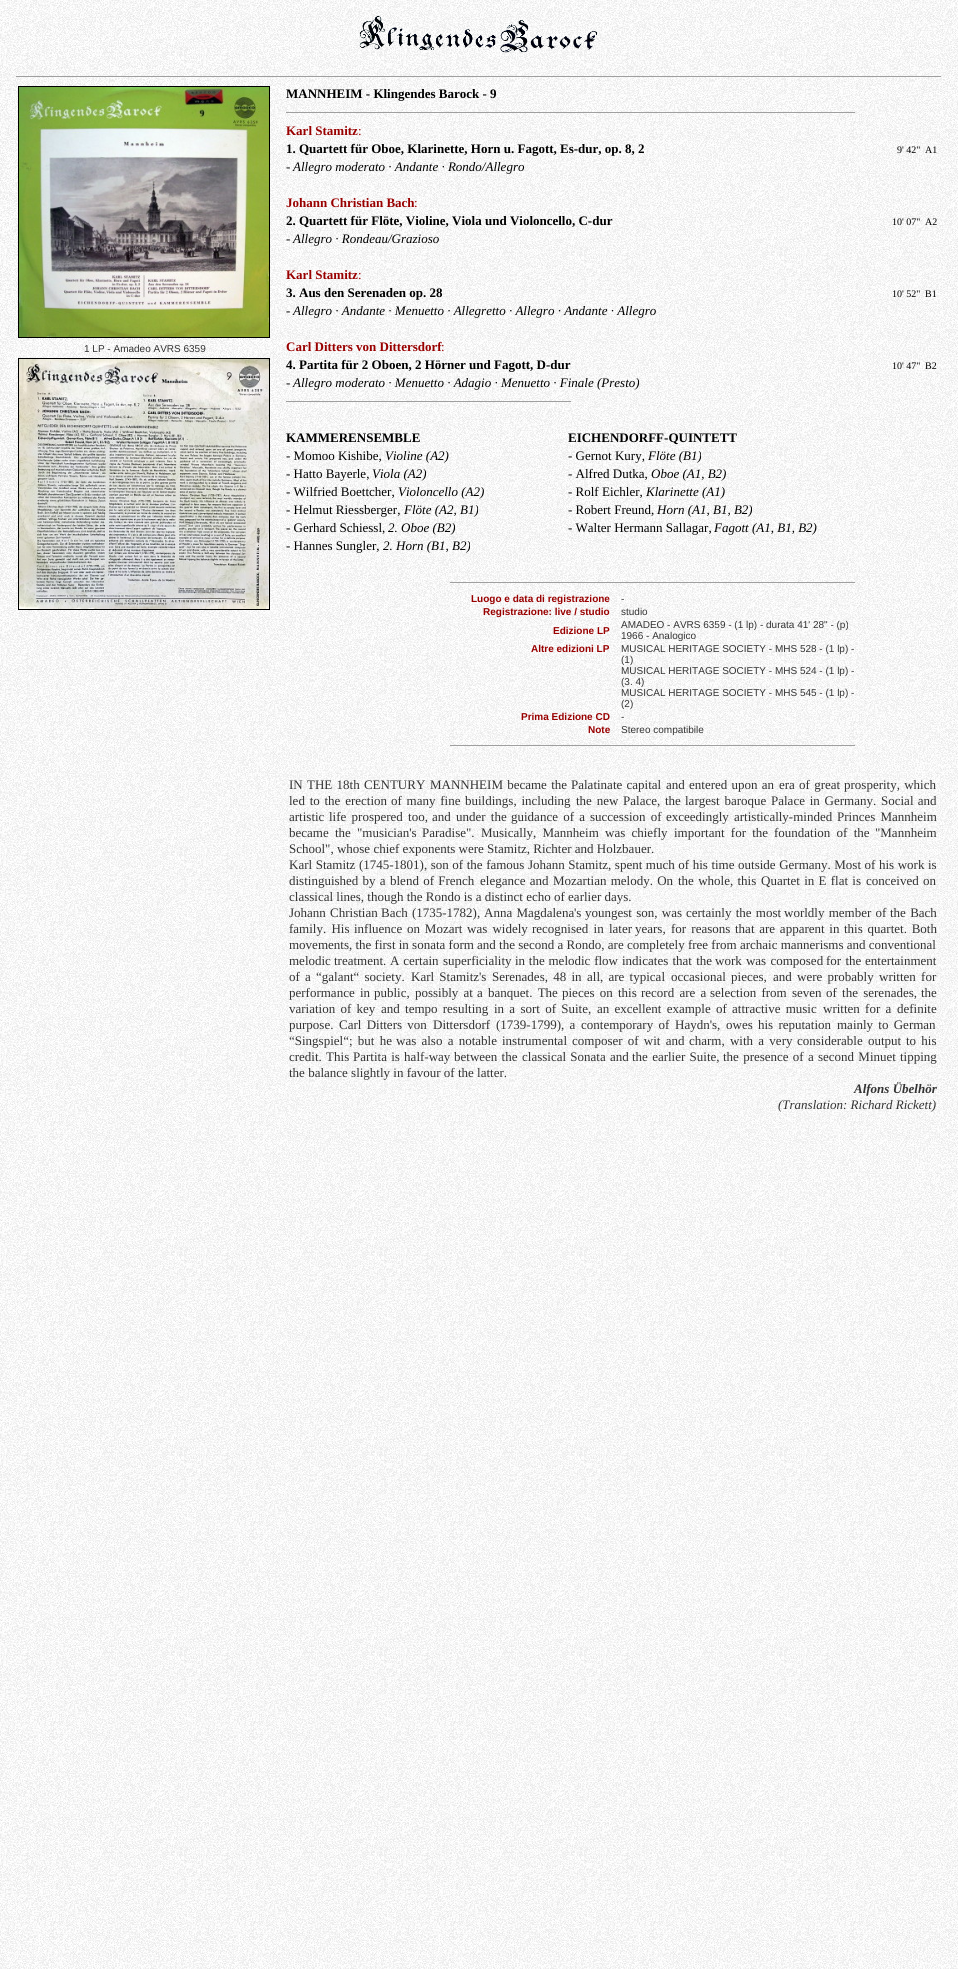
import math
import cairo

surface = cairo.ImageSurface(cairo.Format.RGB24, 958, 1969)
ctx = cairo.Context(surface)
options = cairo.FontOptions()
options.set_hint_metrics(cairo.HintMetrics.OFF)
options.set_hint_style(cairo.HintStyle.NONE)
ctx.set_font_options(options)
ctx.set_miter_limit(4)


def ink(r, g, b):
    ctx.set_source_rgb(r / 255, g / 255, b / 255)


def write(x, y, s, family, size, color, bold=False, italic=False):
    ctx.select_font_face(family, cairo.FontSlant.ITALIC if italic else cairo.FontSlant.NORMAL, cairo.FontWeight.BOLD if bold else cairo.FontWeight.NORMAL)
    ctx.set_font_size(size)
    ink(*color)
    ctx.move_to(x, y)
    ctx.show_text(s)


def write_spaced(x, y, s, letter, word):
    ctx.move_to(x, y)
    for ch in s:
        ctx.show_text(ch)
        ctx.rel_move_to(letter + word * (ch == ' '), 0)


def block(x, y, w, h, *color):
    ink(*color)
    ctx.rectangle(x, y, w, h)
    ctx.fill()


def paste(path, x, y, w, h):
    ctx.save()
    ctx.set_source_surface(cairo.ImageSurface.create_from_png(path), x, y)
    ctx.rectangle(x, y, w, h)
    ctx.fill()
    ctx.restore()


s1 = dict(family="Liberation Sans", size=10, color=(51, 51, 51))
s2 = dict(family="Liberation Serif", size=13, color=(0, 0, 0), bold=True)
s3 = dict(family="Liberation Serif", size=13, color=(153, 0, 0), bold=True)
s4 = dict(family="Liberation Serif", size=13, color=(153, 0, 0))
s5 = dict(family="Liberation Serif", size=10, color=(0, 0, 0))
s6 = dict(family="Liberation Serif", size=13, color=(0, 0, 0))
s7 = dict(family="Liberation Serif", size=13, color=(0, 0, 0), italic=True)
s8 = dict(family="Liberation Sans", size=10, color=(153, 0, 0), bold=True)
s9 = dict(family="Liberation Serif", size=13, color=(51, 51, 51))
s10 = dict(family="Liberation Serif", size=13, color=(51, 51, 51), bold=True, italic=True)
s11 = dict(family="Liberation Serif", size=13, color=(51, 51, 51), italic=True)

ink(255, 255, 255)
ctx.paint()
paste("pic1.png", 0, 0, 958, 1969)
paste("pic2.png", 359, 15, 239, 38)
block(16, 76, 926, 1, 159, 159, 159)
block(941, 76, 1, 1, 238, 238, 238)
ctx.rectangle(18.5, 86.5, 251, 251)
ink(0, 0, 0)
ctx.set_line_width(1)
ctx.stroke()
paste("pic3.png", 19, 87, 250, 250)
write(84, 352, "1 LP - Amadeo AVRS 6359", **s1)
ctx.rectangle(18.5, 358.5, 251, 251)
ink(0, 0, 0)
ctx.stroke()
paste("pic4.png", 19, 359, 250, 250)
write(286, 98, "MANNHEIM - Klingendes Barock - 9", **s2)
block(286, 112, 570, 1, 159, 159, 159)
block(855, 112, 1, 1, 238, 238, 238)
write(286, 135, "Karl Stamitz", **s3)
write(358, 135, ":", **s4)
write(286, 153, "1. Quartett für Oboe, Klarinette, Horn u. Fagott, Es-dur, op. 8, 2", **s2)
write(897, 153, "9' 42\"", **s5)
write(925, 153, "A1", **s5)
write(286, 171, "-", **s6)
write(293, 171, "Allegro moderato · Andante · Rondo/Allegro", **s7)
write(286, 207, "Johann Christian Bach", **s3)
write(414, 207, ":", **s4)
write(286, 225, "2. Quartett für Flöte, Violine, Viola und Violoncello, C-dur", **s2)
write(892, 225, "10' 07\"", **s5)
write(925, 225, "A2", **s5)
write(286, 243, "-", **s6)
write(293, 243, "Allegro · Rondeau/Grazioso", **s7)
write(286, 279, "Karl Stamitz", **s3)
write(358, 279, ":", **s4)
write(286, 297, "3. Aus den Serenaden op. 28", **s2)
write(892, 297, "10' 52\"", **s5)
write(925, 297, "B1", **s5)
write(286, 315, "-", **s6)
write(293, 315, "Allegro · Andante · Menuetto · Allegretto · Allegro · Andante · Allegro", **s7)
write(286, 351, "Carl Ditters von Dittersdorf", **s3)
write(441, 351, ":", **s4)
write(286, 369, "4. Partita für 2 Oboen, 2 Hörner und Fagott, D-dur", **s2)
write(892, 369, "10' 47\"", **s5)
write(925, 369, "B2", **s5)
write(286, 387, "-", **s6)
write(293, 387, "Allegro moderato · Menuetto · Adagio · Menuetto · Finale (Presto)", **s7)
block(286, 401, 286, 1, 159, 159, 159)
block(571, 401, 1, 1, 238, 238, 238)
write(286, 442, "KAMMERENSEMBLE", **s2)
write(568, 442, "EICHENDORFF-QUINTETT", **s2)
write(286, 460, "- Momoo Kishibe,", **s6)
write(385, 460, "Violine (A2)", **s7)
write(568, 460, "- Gernot Kury,", **s6)
write(648, 460, "Flöte (B1)", **s7)
write(286, 478, "- Hatto Bayerle,", **s6)
write(372, 478, "Viola (A2)", **s7)
write(568, 478, "- Alfred Dutka,", **s6)
write(651, 478, "Oboe (A1, B2)", **s7)
write(286, 496, "- Wilfried Boettcher,", **s6)
write(398, 496, "Violoncello (A2)", **s7)
write(568, 496, "- Rolf Eichler,", **s6)
write(646, 496, "Klarinette (A1)", **s7)
write(286, 514, "- Helmut Riessberger,", **s6)
write(404, 514, "Flöte (A2, B1)", **s7)
write(568, 514, "- Robert Freund,", **s6)
write(657, 514, "Horn (A1, B1, B2)", **s7)
write(286, 532, "- Gerhard Schiessl,", **s6)
write(388, 532, "2. Oboe (B2)", **s7)
write(568, 532, "- Walter Hermann Sallagar,", **s6)
write(714, 532, "Fagott (A1, B1, B2)", **s7)
write(286, 550, "- Hannes Sungler,", **s6)
write(383, 550, "2. Horn (B1, B2)", **s7)
block(450, 582, 406, 1, 159, 159, 159)
block(855, 582, 1, 1, 238, 238, 238)
write(471, 602, "Luogo e data di registrazione", **s8)
write(621, 602, "-", **s1)
write(483, 615, "Registrazione: live / studio", **s8)
write(621, 615, "studio", **s1)
write(553, 634, "Edizione LP", **s8)
write(621, 628, "AMADEO - AVRS 6359 - (1 lp) - durata 41' 28\" - (p)", **s1)
write(621, 639, "1966 - Analogico", **s1)
write(531, 652, "Altre edizioni LP", **s8)
write(621, 652, "MUSICAL HERITAGE SOCIETY - MHS 528 - (1 lp) -", **s1)
write(621, 663, "(1)", **s1)
write(621, 674, "MUSICAL HERITAGE SOCIETY - MHS 524 - (1 lp) -", **s1)
write(621, 685, "(3. 4)", **s1)
write(621, 696, "MUSICAL HERITAGE SOCIETY - MHS 545 - (1 lp) -", **s1)
write(621, 707, "(2)", **s1)
write(521, 720, "Prima Edizione CD", **s8)
write(621, 720, "-", **s1)
write(588, 733, "Note", **s8)
write(621, 733, "Stereo compatibile", **s1)
block(450, 745, 406, 1, 159, 159, 159)
block(855, 745, 1, 1, 238, 238, 238)
write(289, 789, "IN", **s9)
write_spaced(307, 789, "THE 18th CENTURY", 0, 1)
write_spaced(430, 789, "MANNHEIM became the", 0, 1)
write_spaced(571, 789, "Palatinate capital", 0, 1)
write_spaced(666, 789, "and entered upon an", 0, 1)
write_spaced(779, 789, "era of great", 0, 1)
write_spaced(844, 789, "prosperity, which", 0, 1)
write_spaced(289, 805, "led to the erection", 0, 1.5)
write_spaced(391, 805, "of many fine", 0, 1.5)
write_spaced(465, 805, "buildings, including", 0, 1.5)
write_spaced(576, 805, "the new Palace, the", 0, 1.5)
write_spaced(685, 805, "largest baroque", 0, 1.5)
write_spaced(771, 805, "Palace in Germany.", 0, 1.5)
write_spaced(881, 805, "Social and", 0, 1)
write(289, 821, "artistic", **s9)
write_spaced(329, 821, "life prospered too,", 0, 2)
write_spaced(432, 821, "and under the", 0, 2)
write_spaced(511, 821, "guidance of a", 0, 2)
write_spaced(590, 821, "succession of", 0, 2)
write(666, 821, "exceedingly", **s9)
write(734, 821, "artistically-minded", **s9)
write_spaced(837, 821, "Princes Mannheim", 0, 2)
write_spaced(289, 837, "became the", 0, 3)
write(357, 837, "\"musician's", **s9)
write(422, 837, "Paradise\".", **s9)
write_spaced(481, 837, "Musically, Mannheim", 0, 3)
write_spaced(605, 837, "was chiefly", 0, 3)
write_spaced(674, 837, "important for the", 0, 3)
write_spaced(774, 837, "foundation of the", 0, 3)
write(875, 837, "\"Mannheim", **s9)
write(289, 853, "School\", whose chief exponents were Stamitz, Richter and Holzbauer.", **s9)
write_spaced(289, 869, "Karl Stamitz (1745-1801), son of the famous Johann Stamitz, spent much of his time outside Germany. Most of his work is", 0, 0.3)
write_spaced(289, 885, "distinguished by a", 0, 1)
write_spaced(390, 885, "blend of French", 0, 1)
write_spaced(480, 885, "elegance and", 0, 1)
write_spaced(553, 885, "Mozartian melody. On", 0, 1)
write_spaced(678, 885, "the whole, this", 0, 1)
write_spaced(761, 885, "Quartet in E flat is", 0, 1)
write_spaced(866, 885, "conceived on", 0, 1)
write(289, 901, "classical lines, though the Rondo is a distinct echo of earlier days.", **s9)
write_spaced(289, 917, "Johann Christian", 0, 1)
write_spaced(381, 917, "Bach (1735-1782),", 0, 1)
write_spaced(484, 917, "Anna Magdalena", 0, 1)
write(574, 917, "'s", **s9)
write_spaced(585, 917, "youngest son, was", 0, 1)
write_spaced(686, 917, "certainly the most", 0, 1)
write_spaced(784, 917, "worldly member of", 0, 1)
write_spaced(890, 917, "the Bach", 0, 1)
write_spaced(289, 933, "family. His", 0, 2)
write_spaced(354, 933, "influence on Mozart", 0, 1.5)
write_spaced(467, 933, "was widely", 0, 2)
write_spaced(532, 933, "recognised in later", 0, 2)
write_spaced(635, 933, "years, for reasons", 0, 2)
write_spaced(735, 933, "that are apparent in", 0, 1.5)
write_spaced(844, 933, "this quartet. Both", 0, 1.5)
write(289, 949, "movements, the first in sonata form and the second a Rondo, are completely free from archaic mannerisms and conventional", **s9)
write(289, 965, "melodic", **s9)
write_spaced(334, 965, "treatment. A certain", 0, 0.5)
write(443, 965, "superficiality", **s9)
write_spaced(515, 965, "in the melodic flow", 0, 0.5)
write_spaced(622, 965, "indicates that the", 0, 1)
write_spaced(715, 965, "work was composed", 0, 1)
write_spaced(826, 965, "for the", 0, 1)
write(865, 965, "entertainment", **s9)
write_spaced(289, 981, "of a", 0, 2)
write_spaced(316, 981, "“galant“ society.", 0, 2)
write_spaced(411, 981, "Karl Stamitz", 0, 2)
write(479, 981, "'s", **s9)
write_spaced(492, 981, "Serenades, 48 in", 0, 2)
write_spaced(587, 981, "all, are typical", 0, 2)
write_spaced(671, 981, "occasional pieces,", 0, 2)
write_spaced(773, 981, "and were probably", 0, 2)
write_spaced(879, 981, "written for", 0, 2)
write_spaced(289, 997, "performance in", 0, 2)
write_spaced(374, 997, "public, possibly at", 0, 2)
write_spaced(477, 997, "a banquet. The", 0, 2)
write_spaced(562, 997, "pieces on this", 0, 2)
write_spaced(641, 997, "record are a", 0, 2)
write_spaced(710, 997, "selection from seven", 0, 2)
write_spaced(826, 997, "of the serenades,", 0, 2)
write(921, 997, "the", **s9)
write_spaced(289, 1013, "variation of key", 0, 2)
write_spaced(381, 1013, "and tempo resulting", 0, 2)
write_spaced(494, 1013, "in a sort of Suite,", 0, 2)
write_spaced(597, 1013, "an excellent example", 0, 2)
write_spaced(716, 1013, "of attractive music", 0, 2)
write_spaced(823, 1013, "written for a", 0, 2)
write(897, 1013, "definite", **s9)
write(289, 1029, "purpose.", **s9)
write_spaced(339, 1029, "Carl Ditters von", 0, 2)
write(433, 1029, "Dittersdorf", **s9)
write_spaced(496, 1029, "(1739-1799), a", 0, 2)
write_spaced(581, 1029, "contemporary of", 0, 2)
write(675, 1029, "Haydn's,", **s9)
write_spaced(726, 1029, "owes his reputation", 0, 2)
write_spaced(837, 1029, "mainly to German", 0, 2)
write_spaced(289, 1045, "“Singspiel“; but he", 0, 2)
write_spaced(396, 1045, "was also a notable", 0, 2)
write(502, 1045, "instrumental", **s9)
write_spaced(572, 1045, "composer of wit and", 0, 2)
write_spaced(689, 1045, "charm, with a very", 0, 2)
write_spaced(797, 1045, "considerable output", 0, 2)
write_spaced(906, 1045, "to his", 0, 2)
write_spaced(289, 1061, "credit. This", 0, 1)
write_spaced(353, 1061, "Partita is half-way", 0, 1)
write_spaced(454, 1061, "between the", 0, 1)
write_spaced(522, 1061, "classical Sonata and", 0, 1)
write_spaced(632, 1061, "the earlier Suite,", 0, 1)
write_spaced(723, 1061, "the presence of a", 0, 1)
write_spaced(818, 1061, "second Minuet", 0, 1)
write(900, 1061, "tipping", **s9)
write(289, 1077, "the balance slightly in favour of the latter.", **s9)
write(854, 1093, "Alfons Übelhör", **s10)
write(778, 1109, "(Translation: Richard Rickett)", **s11)
surface.write_to_png("screenshot.png")
